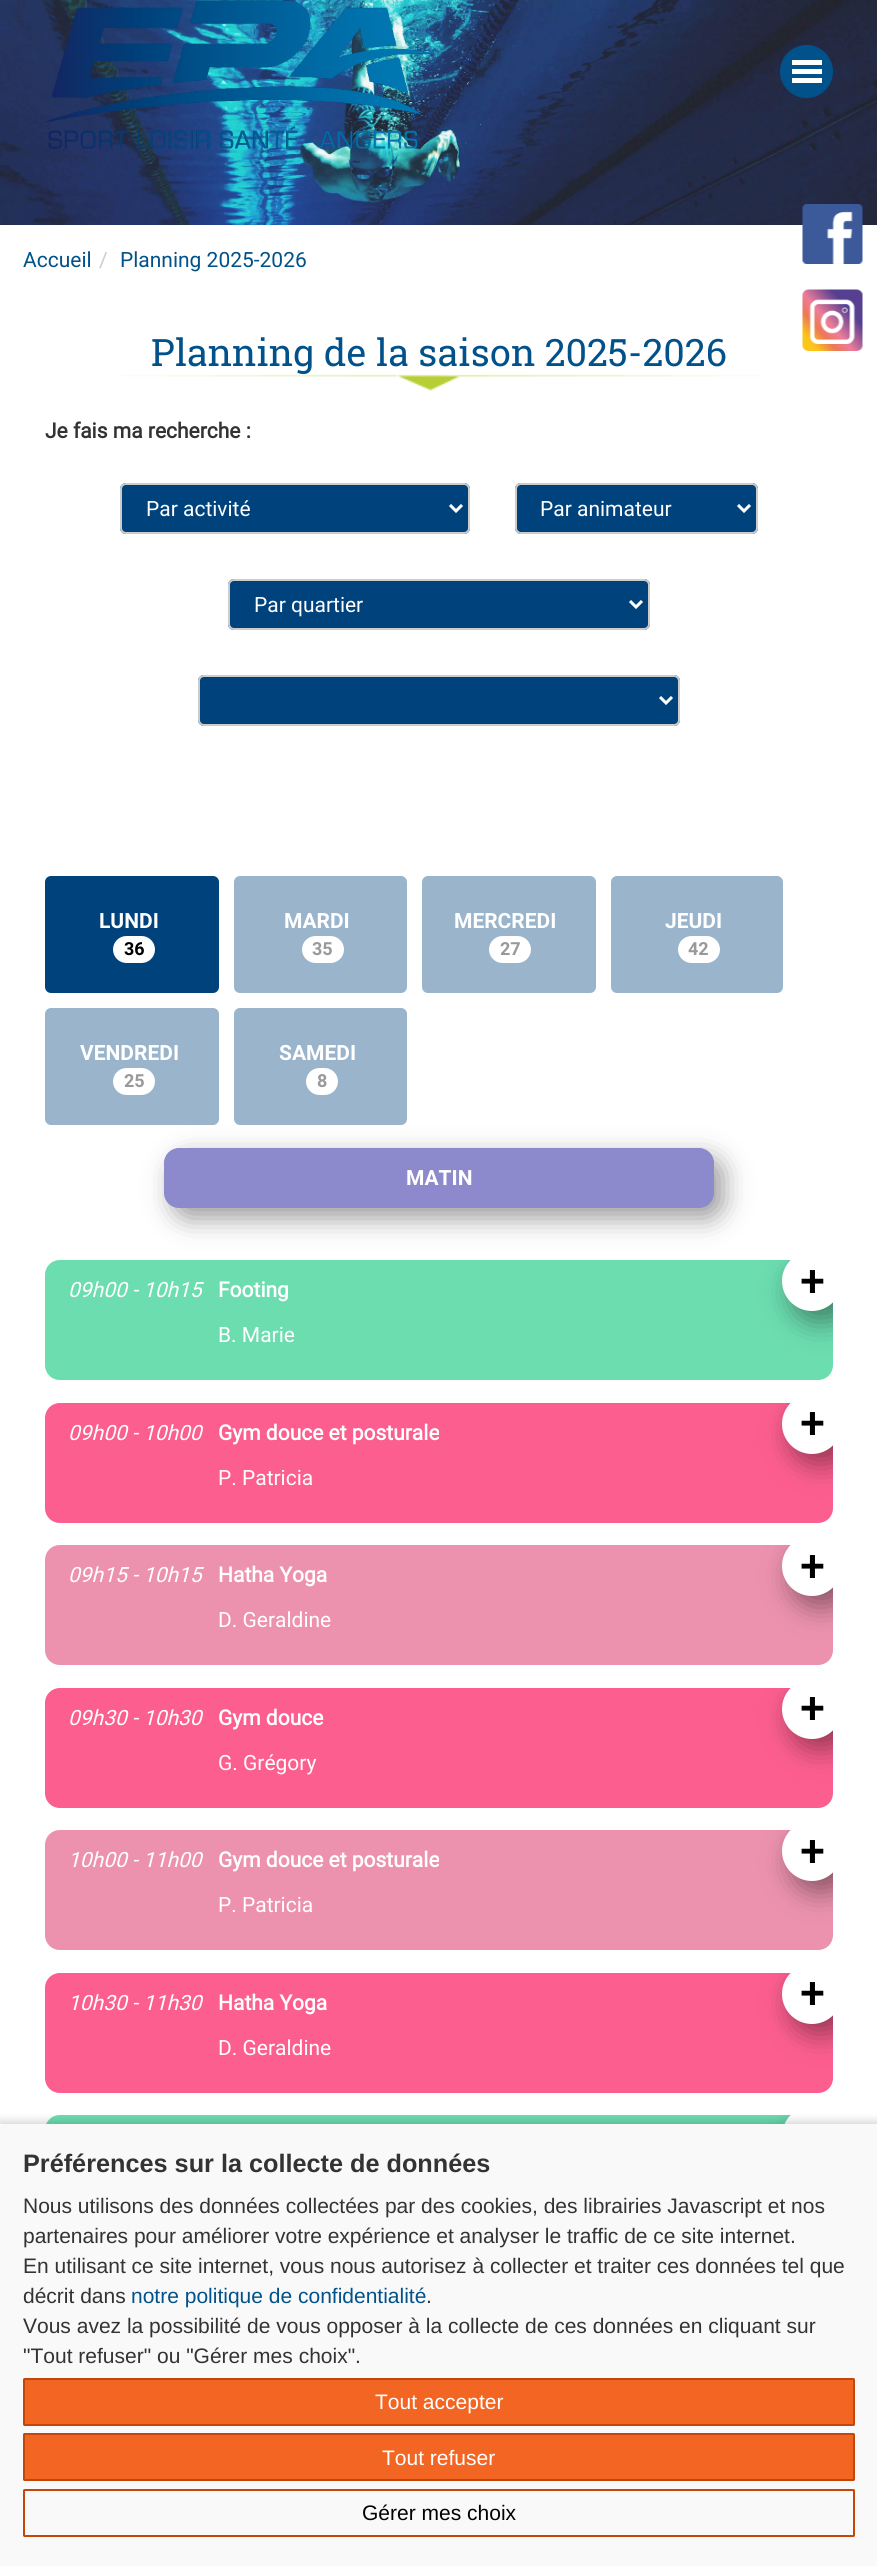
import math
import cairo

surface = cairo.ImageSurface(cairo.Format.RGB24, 877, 2566)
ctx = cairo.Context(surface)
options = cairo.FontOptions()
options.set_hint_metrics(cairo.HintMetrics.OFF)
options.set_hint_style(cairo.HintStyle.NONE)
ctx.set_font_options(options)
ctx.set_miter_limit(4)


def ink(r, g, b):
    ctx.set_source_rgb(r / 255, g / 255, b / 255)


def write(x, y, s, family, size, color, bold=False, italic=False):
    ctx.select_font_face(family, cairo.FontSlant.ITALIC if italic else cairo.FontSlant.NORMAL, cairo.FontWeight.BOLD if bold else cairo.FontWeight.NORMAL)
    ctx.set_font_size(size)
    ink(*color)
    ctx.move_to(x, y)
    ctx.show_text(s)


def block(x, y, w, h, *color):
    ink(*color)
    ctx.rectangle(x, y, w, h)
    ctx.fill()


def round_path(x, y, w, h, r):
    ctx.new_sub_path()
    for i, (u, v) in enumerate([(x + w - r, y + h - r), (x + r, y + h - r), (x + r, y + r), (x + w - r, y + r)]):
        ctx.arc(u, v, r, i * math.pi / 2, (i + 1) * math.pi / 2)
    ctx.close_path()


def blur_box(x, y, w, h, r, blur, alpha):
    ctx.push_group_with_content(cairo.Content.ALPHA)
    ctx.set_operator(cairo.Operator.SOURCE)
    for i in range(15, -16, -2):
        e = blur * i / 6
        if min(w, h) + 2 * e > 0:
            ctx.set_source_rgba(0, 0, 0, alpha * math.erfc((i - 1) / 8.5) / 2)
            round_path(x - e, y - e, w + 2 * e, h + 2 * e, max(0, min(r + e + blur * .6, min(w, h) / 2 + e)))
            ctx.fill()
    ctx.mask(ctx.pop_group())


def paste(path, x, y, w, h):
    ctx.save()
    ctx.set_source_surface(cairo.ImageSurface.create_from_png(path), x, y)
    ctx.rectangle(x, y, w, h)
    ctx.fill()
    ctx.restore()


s1 = dict(family="Roboto", size=21, color=(1, 81, 138))
s2 = dict(family="Roboto", size=21, color=(204, 204, 204))
s3 = dict(family="Roboto Slab", size=37.75, color=(1, 81, 138))
s4 = dict(family="Roboto", size=21, color=(51, 51, 51), bold=True)
s5 = dict(family="Roboto", size=21, color=(255, 255, 255))
s6 = dict(family="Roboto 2", size=21, color=(255, 255, 255), bold=True)
s7 = dict(family="Roboto 2", size=18, color=(0, 0, 0), bold=True)
s8 = dict(family="Roboto 2", size=18, color=(153, 153, 153), bold=True)
s9 = dict(family="Roboto", size=21, color=(255, 255, 255), italic=True)
s10 = dict(family="Roboto", size=21, color=(255, 255, 255), bold=True)
s11 = dict(family="Roboto", size=42, color=(0, 0, 0), bold=True)
s12 = dict(family="Liberation Sans", size=25.25, color=(51, 51, 51), bold=True)
s13 = dict(family="Liberation Sans", size=21, color=(51, 51, 51))
s14 = dict(family="Liberation Sans", size=21, color=(1, 81, 138))
s15 = dict(family="Liberation Sans", size=21, color=(255, 255, 255))
s16 = dict(family="Liberation Sans", size=21, color=(0, 0, 0))

ink(255, 255, 255)
ctx.paint()
paste("pic1.png", 0, 0, 877, 225)
paste("pic2.png", 45, 0, 390, 149)
ink(1, 81, 138)
ctx.arc(806.5, 71.5, 26.5, 0, 2 * math.pi)
ctx.fill()
block(792, 60, 30, 5, 255, 255, 255)
block(792, 69, 30, 5, 255, 255, 255)
block(792, 78, 30, 5, 255, 255, 255)
write(23, 267, "Accueil", **s1)
write(99, 267, "/", **s2)
write(120, 267, "Planning 2025-2026", **s1)
paste("pic3.png", 802, 204, 61, 60)
paste("pic4.png", 802, 289, 61, 62)
paste("pic5.png", 122, 374, 640, 17)
write(151, 366, "Planning de la saison 2025-2026", **s3)
write(45, 438, "Je fais ma recherche :", **s4)
ink(0, 67, 124)
round_path(120, 483, 350, 51, 6)
ctx.fill()
ink(0, 62, 115)
ctx.new_path()
ctx.move_to(126, 486)
ctx.line_to(464, 486)
ctx.curve_to(466, 486, 468, 488, 468, 490)
ctx.curve_to(468, 487, 466, 485, 463, 485)
ctx.line_to(127, 485)
ctx.curve_to(124, 485, 122, 487, 122, 490)
ctx.curve_to(122, 488, 124, 486, 126, 486)
ctx.close_path()
ctx.fill()
round_path(121, 484, 348, 49, 5)
ink(204, 204, 204)
ctx.stroke()
ctx.new_path()
ctx.move_to(450, 505)
ctx.line_to(456, 511)
ctx.line_to(462, 505)
ink(255, 255, 255)
ctx.set_line_width(3)
ctx.stroke()
write(146, 516, "Par activité", **s5)
ink(0, 67, 124)
round_path(515, 483, 243, 51, 6)
ctx.fill()
ink(0, 62, 115)
ctx.new_path()
ctx.move_to(520, 486)
ctx.line_to(752, 486)
ctx.curve_to(754, 486, 756, 488, 756, 490)
ctx.curve_to(756, 487, 754, 485, 751, 485)
ctx.line_to(521, 485)
ctx.curve_to(518, 485, 516, 487, 516, 490)
ctx.curve_to(516, 488, 518, 486, 520, 486)
ctx.close_path()
ctx.fill()
round_path(516, 484, 241, 49, 5)
ink(204, 204, 204)
ctx.set_line_width(2)
ctx.stroke()
ctx.new_path()
ctx.move_to(738, 505)
ctx.line_to(744, 511)
ctx.line_to(750, 505)
ink(255, 255, 255)
ctx.set_line_width(3)
ctx.stroke()
write(540, 516, "Par animateur", **s5)
ink(0, 67, 124)
round_path(228, 579, 422, 51, 6)
ctx.fill()
ink(0, 62, 115)
ctx.new_path()
ctx.move_to(234, 582)
ctx.line_to(644, 582)
ctx.curve_to(646, 582, 648, 584, 648, 586)
ctx.curve_to(648, 583, 646, 581, 643, 581)
ctx.line_to(235, 581)
ctx.curve_to(232, 581, 230, 583, 230, 586)
ctx.curve_to(230, 584, 232, 582, 234, 582)
ctx.close_path()
ctx.fill()
round_path(229, 580, 420, 49, 5)
ink(204, 204, 204)
ctx.set_line_width(2)
ctx.stroke()
ctx.new_path()
ctx.move_to(630, 601)
ctx.line_to(636, 607)
ctx.line_to(642, 601)
ink(255, 255, 255)
ctx.set_line_width(3)
ctx.stroke()
write(254, 612, "Par quartier", **s5)
ink(0, 67, 124)
round_path(198, 675, 482, 51, 6)
ctx.fill()
ink(0, 62, 115)
ctx.new_path()
ctx.move_to(204, 678)
ctx.line_to(674, 678)
ctx.curve_to(676, 678, 678, 680, 678, 682)
ctx.curve_to(678, 679, 676, 677, 673, 677)
ctx.line_to(205, 677)
ctx.curve_to(202, 677, 200, 679, 200, 682)
ctx.curve_to(200, 680, 202, 678, 204, 678)
ctx.close_path()
ctx.fill()
round_path(199, 676, 480, 49, 5)
ink(204, 204, 204)
ctx.set_line_width(2)
ctx.stroke()
ctx.new_path()
ctx.move_to(660, 697)
ctx.line_to(666, 703)
ctx.line_to(672, 697)
ink(255, 255, 255)
ctx.set_line_width(3)
ctx.stroke()
ink(0, 67, 124)
round_path(45, 876, 174, 117, 6)
ctx.fill()
write(99, 928, "LUNDI", **s6)
round_path(113, 936, 42, 27, 13.5)
ctx.fill()
write(124, 955, "36", **s7)
ink(153, 180, 203)
round_path(234, 876, 173, 117, 6)
ctx.fill()
write(284, 928, "MARDI", **s6)
round_path(302, 936, 42, 27, 13.5)
ctx.fill()
write(312, 955, "35", **s8)
ink(153, 180, 203)
round_path(422, 876, 174, 117, 6)
ctx.fill()
write(454, 928, "MERCREDI", **s6)
round_path(489, 936, 42, 27, 13.5)
ctx.fill()
write(500, 955, "27", **s8)
ink(153, 180, 203)
round_path(611, 876, 172, 117, 6)
ctx.fill()
write(665, 928, "JEUDI", **s6)
round_path(678, 936, 42, 27, 13.5)
ctx.fill()
write(688, 955, "42", **s8)
ink(153, 180, 203)
round_path(45, 1008, 174, 117, 6)
ctx.fill()
write(80, 1060, "VENDREDI", **s6)
round_path(113, 1068, 42, 27, 13.5)
ctx.fill()
write(124, 1087, "25", **s8)
ink(153, 180, 203)
round_path(234, 1008, 173, 117, 6)
ctx.fill()
write(279, 1060, "SAMEDI", **s6)
round_path(306, 1068, 32, 27, 13.5)
ctx.fill()
write(317, 1087, "8", **s8)
ink(0, 0, 0)
blur_box(173, 1158, 550, 60, 15, 13.5, 0.4)
ink(140, 137, 204)
round_path(164, 1148, 550, 60, 15)
ctx.fill()
write(406, 1185, "MATIN", **s6)
ink(108, 221, 175)
ctx.new_path()
ctx.move_to(60, 1260)
ctx.line_to(833, 1260)
ctx.line_to(833, 1365)
ctx.curve_to(833, 1373.5, 826.5, 1380, 818, 1380)
ctx.line_to(60, 1380)
ctx.curve_to(51.5, 1380, 45, 1373.5, 45, 1365)
ctx.line_to(45, 1275)
ctx.curve_to(45, 1266.5, 51.5, 1260, 60, 1260)
ctx.close_path()
ctx.fill()
write(68, 1297, "09h00 - 10h15", **s9)
write(218, 1297, "Footing", **s10)
ctx.save()
ctx.new_path()
ctx.move_to(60, 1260)
ctx.line_to(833, 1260)
ctx.line_to(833, 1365)
ctx.curve_to(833, 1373.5, 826.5, 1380, 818, 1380)
ctx.line_to(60, 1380)
ctx.curve_to(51.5, 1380, 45, 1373.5, 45, 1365)
ctx.line_to(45, 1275)
ctx.curve_to(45, 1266.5, 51.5, 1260, 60, 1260)
ctx.close_path()
ctx.clip()
ink(0, 0, 0)
blur_box(791, 1262, 60, 60, 30, 13.5, 0.4)
ctx.restore()
ctx.save()
ctx.new_path()
ctx.move_to(60, 1260)
ctx.line_to(833, 1260)
ctx.line_to(833, 1365)
ctx.curve_to(833, 1373.5, 826.5, 1380, 818, 1380)
ctx.line_to(60, 1380)
ctx.curve_to(51.5, 1380, 45, 1373.5, 45, 1365)
ctx.line_to(45, 1275)
ctx.curve_to(45, 1266.5, 51.5, 1260, 60, 1260)
ctx.close_path()
ctx.clip()
ctx.new_path()
ctx.move_to(812, 1251)
ctx.line_to(842, 1251)
ctx.line_to(842, 1281)
ctx.curve_to(842, 1297.5, 828.5, 1311, 812, 1311)
ctx.curve_to(795.5, 1311, 782, 1297.5, 782, 1281)
ctx.curve_to(782, 1264.5, 795.5, 1251, 812, 1251)
ctx.close_path()
ctx.fill()
ctx.restore()
write(800, 1296, "+", **s11)
write(218, 1342, "B. Marie", **s5)
ink(252, 94, 143)
ctx.new_path()
ctx.move_to(60, 1403)
ctx.line_to(833, 1403)
ctx.line_to(833, 1508)
ctx.curve_to(833, 1516.5, 826.5, 1523, 818, 1523)
ctx.line_to(60, 1523)
ctx.curve_to(51.5, 1523, 45, 1516.5, 45, 1508)
ctx.line_to(45, 1418)
ctx.curve_to(45, 1409.5, 51.5, 1403, 60, 1403)
ctx.close_path()
ctx.fill()
write(68, 1440, "09h00 - 10h00", **s9)
write(218, 1440, "Gym douce et posturale", **s10)
ctx.save()
ctx.new_path()
ctx.move_to(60, 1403)
ctx.line_to(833, 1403)
ctx.line_to(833, 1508)
ctx.curve_to(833, 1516.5, 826.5, 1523, 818, 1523)
ctx.line_to(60, 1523)
ctx.curve_to(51.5, 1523, 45, 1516.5, 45, 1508)
ctx.line_to(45, 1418)
ctx.curve_to(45, 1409.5, 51.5, 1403, 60, 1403)
ctx.close_path()
ctx.clip()
ink(0, 0, 0)
blur_box(791, 1404, 60, 60, 30, 13.5, 0.4)
ctx.restore()
ctx.save()
ctx.new_path()
ctx.move_to(60, 1403)
ctx.line_to(833, 1403)
ctx.line_to(833, 1508)
ctx.curve_to(833, 1516.5, 826.5, 1523, 818, 1523)
ctx.line_to(60, 1523)
ctx.curve_to(51.5, 1523, 45, 1516.5, 45, 1508)
ctx.line_to(45, 1418)
ctx.curve_to(45, 1409.5, 51.5, 1403, 60, 1403)
ctx.close_path()
ctx.clip()
ctx.new_path()
ctx.move_to(812, 1394)
ctx.line_to(842, 1394)
ctx.line_to(842, 1424)
ctx.curve_to(842, 1440.5, 828.5, 1454, 812, 1454)
ctx.curve_to(795.5, 1454, 782, 1440.5, 782, 1424)
ctx.curve_to(782, 1407.5, 795.5, 1394, 812, 1394)
ctx.close_path()
ctx.fill()
ctx.restore()
write(800, 1438, "+", **s11)
write(218, 1485, "P. Patricia", **s5)
ink(236, 146, 174)
ctx.new_path()
ctx.move_to(60, 1545)
ctx.line_to(833, 1545)
ctx.line_to(833, 1650)
ctx.curve_to(833, 1658.5, 826.5, 1665, 818, 1665)
ctx.line_to(60, 1665)
ctx.curve_to(51.5, 1665, 45, 1658.5, 45, 1650)
ctx.line_to(45, 1560)
ctx.curve_to(45, 1551.5, 51.5, 1545, 60, 1545)
ctx.close_path()
ctx.fill()
write(68, 1582, "09h15 - 10h15", **s9)
write(218, 1582, "Hatha Yoga", **s10)
ctx.save()
ctx.new_path()
ctx.move_to(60, 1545)
ctx.line_to(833, 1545)
ctx.line_to(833, 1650)
ctx.curve_to(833, 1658.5, 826.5, 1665, 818, 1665)
ctx.line_to(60, 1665)
ctx.curve_to(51.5, 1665, 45, 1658.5, 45, 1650)
ctx.line_to(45, 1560)
ctx.curve_to(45, 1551.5, 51.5, 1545, 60, 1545)
ctx.close_path()
ctx.clip()
ink(0, 0, 0)
blur_box(791, 1547, 60, 60, 30, 13.5, 0.4)
ctx.restore()
ctx.save()
ctx.new_path()
ctx.move_to(60, 1545)
ctx.line_to(833, 1545)
ctx.line_to(833, 1650)
ctx.curve_to(833, 1658.5, 826.5, 1665, 818, 1665)
ctx.line_to(60, 1665)
ctx.curve_to(51.5, 1665, 45, 1658.5, 45, 1650)
ctx.line_to(45, 1560)
ctx.curve_to(45, 1551.5, 51.5, 1545, 60, 1545)
ctx.close_path()
ctx.clip()
ctx.new_path()
ctx.move_to(812, 1536)
ctx.line_to(842, 1536)
ctx.line_to(842, 1566)
ctx.curve_to(842, 1582.5, 828.5, 1596, 812, 1596)
ctx.curve_to(795.5, 1596, 782, 1582.5, 782, 1566)
ctx.curve_to(782, 1549.5, 795.5, 1536, 812, 1536)
ctx.close_path()
ctx.fill()
ctx.restore()
write(800, 1581, "+", **s11)
write(218, 1627, "D. Geraldine", **s5)
ink(252, 94, 143)
ctx.new_path()
ctx.move_to(60, 1688)
ctx.line_to(833, 1688)
ctx.line_to(833, 1793)
ctx.curve_to(833, 1801.5, 826.5, 1808, 818, 1808)
ctx.line_to(60, 1808)
ctx.curve_to(51.5, 1808, 45, 1801.5, 45, 1793)
ctx.line_to(45, 1703)
ctx.curve_to(45, 1694.5, 51.5, 1688, 60, 1688)
ctx.close_path()
ctx.fill()
write(68, 1725, "09h30 - 10h30", **s9)
write(218, 1725, "Gym douce", **s10)
ctx.save()
ctx.new_path()
ctx.move_to(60, 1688)
ctx.line_to(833, 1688)
ctx.line_to(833, 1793)
ctx.curve_to(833, 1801.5, 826.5, 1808, 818, 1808)
ctx.line_to(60, 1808)
ctx.curve_to(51.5, 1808, 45, 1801.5, 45, 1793)
ctx.line_to(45, 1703)
ctx.curve_to(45, 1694.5, 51.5, 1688, 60, 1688)
ctx.close_path()
ctx.clip()
ink(0, 0, 0)
blur_box(791, 1689, 60, 60, 30, 13.5, 0.4)
ctx.restore()
ctx.save()
ctx.new_path()
ctx.move_to(60, 1688)
ctx.line_to(833, 1688)
ctx.line_to(833, 1793)
ctx.curve_to(833, 1801.5, 826.5, 1808, 818, 1808)
ctx.line_to(60, 1808)
ctx.curve_to(51.5, 1808, 45, 1801.5, 45, 1793)
ctx.line_to(45, 1703)
ctx.curve_to(45, 1694.5, 51.5, 1688, 60, 1688)
ctx.close_path()
ctx.clip()
ctx.new_path()
ctx.move_to(812, 1679)
ctx.line_to(842, 1679)
ctx.line_to(842, 1709)
ctx.curve_to(842, 1725.5, 828.5, 1739, 812, 1739)
ctx.curve_to(795.5, 1739, 782, 1725.5, 782, 1709)
ctx.curve_to(782, 1692.5, 795.5, 1679, 812, 1679)
ctx.close_path()
ctx.fill()
ctx.restore()
write(800, 1723, "+", **s11)
write(218, 1770, "G. Grégory", **s5)
ink(236, 146, 174)
ctx.new_path()
ctx.move_to(60, 1830)
ctx.line_to(833, 1830)
ctx.line_to(833, 1935)
ctx.curve_to(833, 1943.5, 826.5, 1950, 818, 1950)
ctx.line_to(60, 1950)
ctx.curve_to(51.5, 1950, 45, 1943.5, 45, 1935)
ctx.line_to(45, 1845)
ctx.curve_to(45, 1836.5, 51.5, 1830, 60, 1830)
ctx.close_path()
ctx.fill()
write(68, 1867, "10h00 - 11h00", **s9)
write(218, 1867, "Gym douce et posturale", **s10)
ctx.save()
ctx.new_path()
ctx.move_to(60, 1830)
ctx.line_to(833, 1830)
ctx.line_to(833, 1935)
ctx.curve_to(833, 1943.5, 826.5, 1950, 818, 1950)
ctx.line_to(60, 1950)
ctx.curve_to(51.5, 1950, 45, 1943.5, 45, 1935)
ctx.line_to(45, 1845)
ctx.curve_to(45, 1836.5, 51.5, 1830, 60, 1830)
ctx.close_path()
ctx.clip()
ink(0, 0, 0)
blur_box(791, 1832, 60, 60, 30, 13.5, 0.4)
ctx.restore()
ctx.save()
ctx.new_path()
ctx.move_to(60, 1830)
ctx.line_to(833, 1830)
ctx.line_to(833, 1935)
ctx.curve_to(833, 1943.5, 826.5, 1950, 818, 1950)
ctx.line_to(60, 1950)
ctx.curve_to(51.5, 1950, 45, 1943.5, 45, 1935)
ctx.line_to(45, 1845)
ctx.curve_to(45, 1836.5, 51.5, 1830, 60, 1830)
ctx.close_path()
ctx.clip()
ctx.new_path()
ctx.move_to(812, 1821)
ctx.line_to(842, 1821)
ctx.line_to(842, 1851)
ctx.curve_to(842, 1867.5, 828.5, 1881, 812, 1881)
ctx.curve_to(795.5, 1881, 782, 1867.5, 782, 1851)
ctx.curve_to(782, 1834.5, 795.5, 1821, 812, 1821)
ctx.close_path()
ctx.fill()
ctx.restore()
write(800, 1866, "+", **s11)
write(218, 1912, "P. Patricia", **s5)
ink(252, 94, 143)
ctx.new_path()
ctx.move_to(60, 1973)
ctx.line_to(833, 1973)
ctx.line_to(833, 2078)
ctx.curve_to(833, 2086.5, 826.5, 2093, 818, 2093)
ctx.line_to(60, 2093)
ctx.curve_to(51.5, 2093, 45, 2086.5, 45, 2078)
ctx.line_to(45, 1988)
ctx.curve_to(45, 1979.5, 51.5, 1973, 60, 1973)
ctx.close_path()
ctx.fill()
write(68, 2010, "10h30 - 11h30", **s9)
write(218, 2010, "Hatha Yoga", **s10)
ctx.save()
ctx.new_path()
ctx.move_to(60, 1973)
ctx.line_to(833, 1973)
ctx.line_to(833, 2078)
ctx.curve_to(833, 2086.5, 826.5, 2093, 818, 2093)
ctx.line_to(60, 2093)
ctx.curve_to(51.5, 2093, 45, 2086.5, 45, 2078)
ctx.line_to(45, 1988)
ctx.curve_to(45, 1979.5, 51.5, 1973, 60, 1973)
ctx.close_path()
ctx.clip()
ink(0, 0, 0)
blur_box(791, 1974, 60, 60, 30, 13.5, 0.4)
ctx.restore()
ctx.save()
ctx.new_path()
ctx.move_to(60, 1973)
ctx.line_to(833, 1973)
ctx.line_to(833, 2078)
ctx.curve_to(833, 2086.5, 826.5, 2093, 818, 2093)
ctx.line_to(60, 2093)
ctx.curve_to(51.5, 2093, 45, 2086.5, 45, 2078)
ctx.line_to(45, 1988)
ctx.curve_to(45, 1979.5, 51.5, 1973, 60, 1973)
ctx.close_path()
ctx.clip()
ctx.new_path()
ctx.move_to(812, 1964)
ctx.line_to(842, 1964)
ctx.line_to(842, 1994)
ctx.curve_to(842, 2010.5, 828.5, 2024, 812, 2024)
ctx.curve_to(795.5, 2024, 782, 2010.5, 782, 1994)
ctx.curve_to(782, 1977.5, 795.5, 1964, 812, 1964)
ctx.close_path()
ctx.fill()
ctx.restore()
write(800, 2008, "+", **s11)
write(218, 2055, "D. Geraldine", **s5)
ink(108, 221, 175)
ctx.new_path()
ctx.move_to(60, 2115)
ctx.line_to(833, 2115)
ctx.line_to(833, 2220)
ctx.curve_to(833, 2228.5, 826.5, 2235, 818, 2235)
ctx.line_to(60, 2235)
ctx.curve_to(51.5, 2235, 45, 2228.5, 45, 2220)
ctx.line_to(45, 2130)
ctx.curve_to(45, 2121.5, 51.5, 2115, 60, 2115)
ctx.close_path()
ctx.fill()
ctx.save()
ctx.new_path()
ctx.move_to(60, 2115)
ctx.line_to(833, 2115)
ctx.line_to(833, 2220)
ctx.curve_to(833, 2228.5, 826.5, 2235, 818, 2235)
ctx.line_to(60, 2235)
ctx.curve_to(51.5, 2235, 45, 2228.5, 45, 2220)
ctx.line_to(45, 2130)
ctx.curve_to(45, 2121.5, 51.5, 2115, 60, 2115)
ctx.close_path()
ctx.clip()
ink(0, 0, 0)
blur_box(791, 2117, 60, 60, 30, 13.5, 0.4)
ctx.restore()
ctx.save()
ctx.new_path()
ctx.move_to(60, 2115)
ctx.line_to(833, 2115)
ctx.line_to(833, 2220)
ctx.curve_to(833, 2228.5, 826.5, 2235, 818, 2235)
ctx.line_to(60, 2235)
ctx.curve_to(51.5, 2235, 45, 2228.5, 45, 2220)
ctx.line_to(45, 2130)
ctx.curve_to(45, 2121.5, 51.5, 2115, 60, 2115)
ctx.close_path()
ctx.clip()
ink(255, 255, 255)
ctx.new_path()
ctx.move_to(812, 2106)
ctx.line_to(842, 2106)
ctx.line_to(842, 2136)
ctx.curve_to(842, 2152.5, 828.5, 2166, 812, 2166)
ctx.curve_to(795.5, 2166, 782, 2152.5, 782, 2136)
ctx.curve_to(782, 2119.5, 795.5, 2106, 812, 2106)
ctx.close_path()
ctx.fill()
ctx.restore()
ink(0, 0, 0)
blur_box(-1, 2120, 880, 445, 0, 4, 0.14)
block(0, 2124, 877, 442, 249, 249, 249)
write(23, 2172, "Préférences sur la collecte de données", **s12)
write(23, 2213, "Nous utilisons des données collectées par des cookies, des librairies Javascript et nos", **s13)
write(23, 2243, "partenaires pour améliorer votre expérience et analyser le traffic de ce site internet.", **s13)
write(23, 2273, "En utilisant ce site internet, vous nous autorisez à collecter et traiter ces données tel que", **s13)
write(23, 2303, "décrit dans", **s13)
write(131, 2303, "notre politique de confidentialité", **s14)
write(426, 2303, ".", **s13)
write(23, 2333, "Vous avez la possibilité de vous opposer à la collecte de ces données en cliquant sur", **s13)
write(23, 2363, "\"Tout refuser\" ou \"Gérer mes choix\".", **s13)
ink(242, 101, 34)
round_path(24, 2379, 830, 46, 0.5)
ctx.fill_preserve()
ink(195, 70, 11)
ctx.set_line_width(2)
ctx.stroke()
write(375, 2409, "Tout accepter", **s15)
ink(242, 101, 34)
round_path(24, 2434, 830, 46, 0.5)
ctx.fill_preserve()
ink(195, 70, 11)
ctx.stroke()
write(382, 2465, "Tout refuser", **s15)
round_path(24, 2490, 830, 46, 0.5)
ink(195, 70, 11)
ctx.stroke()
write(362, 2520, "Gérer mes choix", **s16)
surface.write_to_png("screenshot.png")
